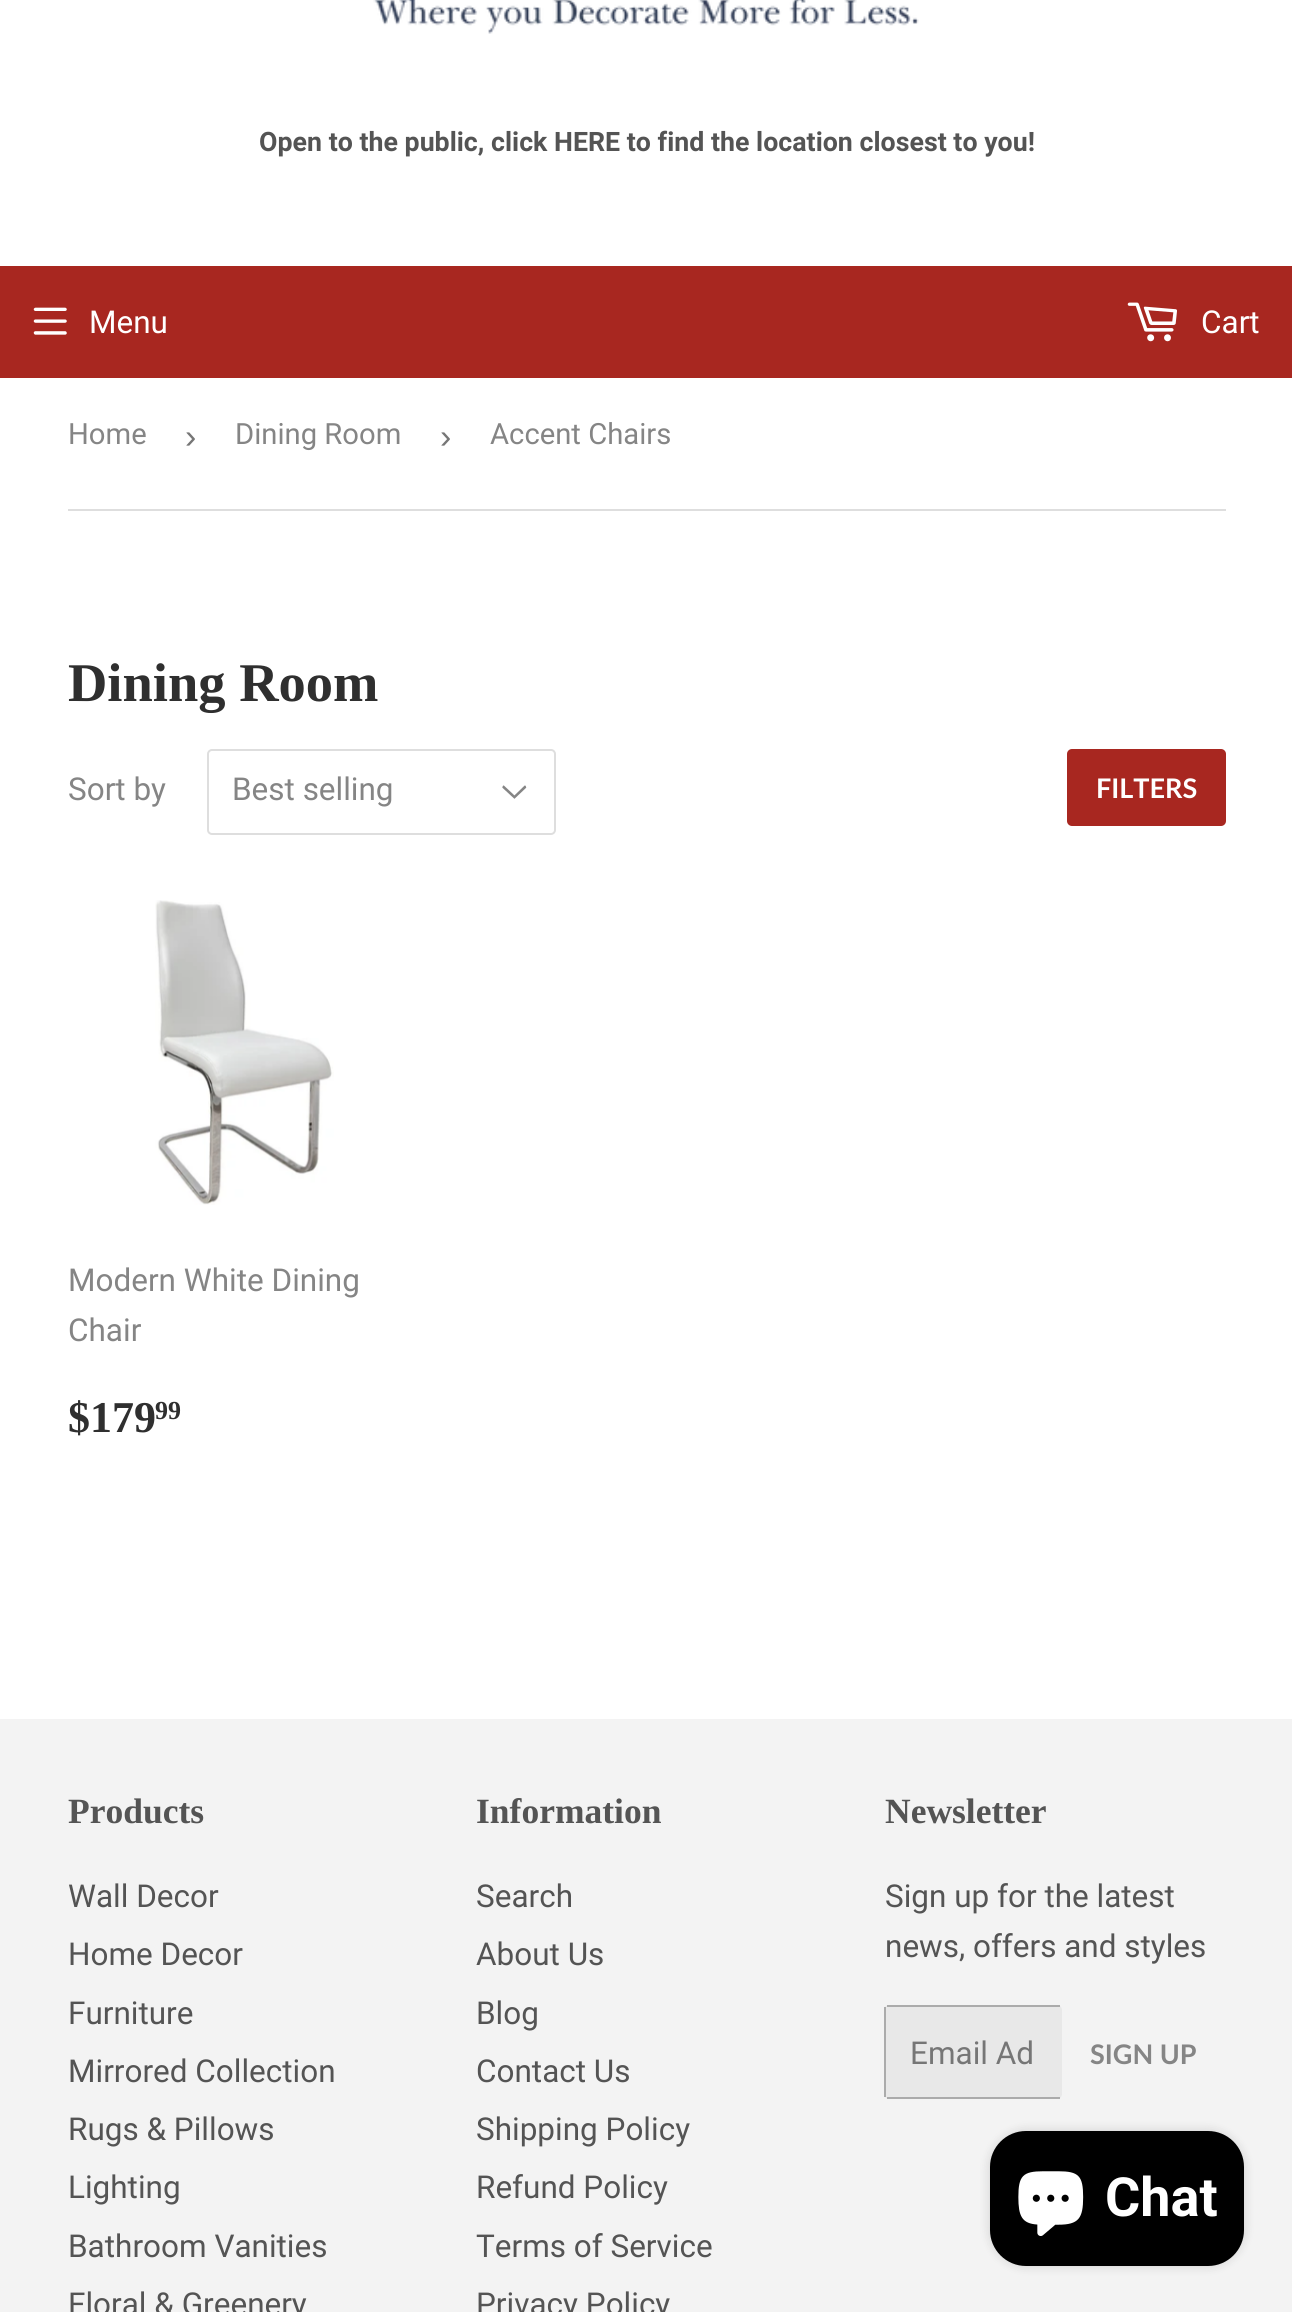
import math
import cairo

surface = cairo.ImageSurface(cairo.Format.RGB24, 1292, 2312)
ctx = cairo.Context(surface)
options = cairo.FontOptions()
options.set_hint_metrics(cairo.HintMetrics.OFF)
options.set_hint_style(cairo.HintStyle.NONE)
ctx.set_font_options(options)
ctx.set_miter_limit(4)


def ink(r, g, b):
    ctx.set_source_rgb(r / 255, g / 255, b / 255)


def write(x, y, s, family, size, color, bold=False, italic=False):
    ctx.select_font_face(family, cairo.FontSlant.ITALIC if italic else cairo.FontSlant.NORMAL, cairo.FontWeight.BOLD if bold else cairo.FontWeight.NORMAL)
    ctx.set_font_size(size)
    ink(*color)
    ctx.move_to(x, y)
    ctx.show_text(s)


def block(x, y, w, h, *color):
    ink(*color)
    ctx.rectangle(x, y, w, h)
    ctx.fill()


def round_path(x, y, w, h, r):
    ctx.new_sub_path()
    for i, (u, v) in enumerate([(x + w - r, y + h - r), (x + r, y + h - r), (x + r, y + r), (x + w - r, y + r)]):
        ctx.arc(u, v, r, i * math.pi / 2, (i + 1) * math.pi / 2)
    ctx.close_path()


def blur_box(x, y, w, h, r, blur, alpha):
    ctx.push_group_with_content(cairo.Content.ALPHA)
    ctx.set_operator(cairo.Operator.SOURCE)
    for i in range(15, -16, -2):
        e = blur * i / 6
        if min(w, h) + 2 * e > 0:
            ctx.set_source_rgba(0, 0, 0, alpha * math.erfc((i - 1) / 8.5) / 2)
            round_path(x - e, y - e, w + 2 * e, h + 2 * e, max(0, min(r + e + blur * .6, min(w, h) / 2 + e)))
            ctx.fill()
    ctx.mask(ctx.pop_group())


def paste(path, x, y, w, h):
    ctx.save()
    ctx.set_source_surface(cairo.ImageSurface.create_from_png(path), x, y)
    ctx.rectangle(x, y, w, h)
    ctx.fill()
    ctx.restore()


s1 = dict(family="Roboto", size=26.75, color=(84, 84, 84), bold=True)
s2 = dict(family="Roboto", size=31.5, color=(255, 255, 255))
s3 = dict(family="Roboto", size=29.25, color=(133, 133, 133))
s4 = dict(family="Liberation Sans", size=34, color=(118, 118, 118))
s5 = dict(family="Liberation Serif", size=54.5, color=(47, 47, 47), bold=True)
s6 = dict(family="Roboto", size=31.5, color=(133, 133, 133))
s7 = dict(family="Lato", size=27, color=(255, 255, 255), bold=True)
s8 = dict(family="Liberation Serif", size=44, color=(47, 47, 47), bold=True)
s9 = dict(family="Liberation Serif", size=26, color=(47, 47, 47), bold=True)
s10 = dict(family="Liberation Serif", size=35.5, color=(84, 84, 84), bold=True)
s11 = dict(family="Roboto", size=31.5, color=(84, 84, 84))
s12 = dict(family="Roboto", size=31.5, color=(118, 118, 118))
s13 = dict(family="Lato", size=27, color=(133, 133, 133), bold=True)
s14 = dict(family="Roboto", size=54, color=(255, 255, 255), bold=True)

ink(255, 255, 255)
ctx.paint()
paste("pic1.png", 373, 0, 546, 34)
write(259, 151, "Open to the public, click HERE to find the location closest to you!", **s1)
block(0, 266, 1292, 112, 168, 39, 32)
paste("pic2.png", 33, 307, 34, 28)
write(89, 333, "Menu", **s2)
paste("pic3.png", 1127, 302, 50, 40)
write(1201, 333, "Cart", **s2)
block(68, 509, 1158, 2, 222, 222, 222)
write(68, 444, "Home", **s3)
write(185, 448, "›", **s4)
write(235, 444, "Dining Room", **s3)
write(440, 448, "›", **s4)
write(490, 444, "Accent Chairs", **s3)
write(68, 701, "Dining Room", **s5)
write(68, 800, "Sort by", **s6)
paste("pic4.png", 502, 785, 25, 14)
round_path(208, 750, 347, 84, 4)
ink(222, 222, 222)
ctx.stroke()
write(232, 800, "Best selling", **s6)
ink(168, 39, 32)
round_path(1067, 749, 159, 77, 5)
ctx.fill()
write(1096, 798, "FILTERS", **s7)
paste("pic5.png", 155, 900, 179, 305)
write(68, 1291, "Modern White Dining", **s6)
write(68, 1341, "Chair", **s6)
write(68, 1432, "$179", **s8)
write(155, 1419, "99", **s9)
block(0, 1719, 1292, 593, 243, 243, 243)
write(68, 1823, "Products", **s10)
write(68, 1907, "Wall Decor", **s11)
write(68, 1965, "Home Decor", **s11)
write(68, 2024, "Furniture", **s11)
write(68, 2082, "Mirrored Collection", **s11)
write(68, 2140, "Rugs & Pillows", **s11)
write(68, 2198, "Lighting", **s11)
write(68, 2257, "Bathroom Vanities", **s11)
write(68, 2315, "Floral & Greenery", **s11)
write(476, 1823, "Information", **s10)
write(476, 1907, "Search", **s11)
write(476, 1965, "About Us", **s11)
write(476, 2024, "Blog", **s11)
write(476, 2082, "Contact Us", **s11)
write(476, 2140, "Shipping Policy", **s11)
write(476, 2198, "Refund Policy", **s11)
write(476, 2257, "Terms of Service", **s11)
write(476, 2315, "Privacy Policy", **s11)
write(885, 1823, "Newsletter", **s10)
write(885, 1907, "Sign up for the latest", **s11)
write(885, 1957, "news, offers and styles", **s11)
ink(232, 232, 232)
round_path(884, 2005, 178, 94, 5)
ctx.fill()
block(887, 2005, 173, 2, 171, 171, 171)
block(887, 2097, 173, 2, 171, 171, 171)
block(884, 2007, 2, 90, 171, 171, 171)
write(910, 2064, "Email Ad", **s12)
write(1090, 2064, "SIGN UP", **s13)
ink(0, 0, 0)
blur_box(990, 2131, 254, 135, 36, 5.5, 0.15)
ink(0, 0, 0)
round_path(990, 2131, 254, 135, 36)
ctx.fill()
paste("pic6.png", 1018, 2171, 66, 65)
write(1105, 2216, "Chat", **s14)
surface.write_to_png("screenshot.png")
